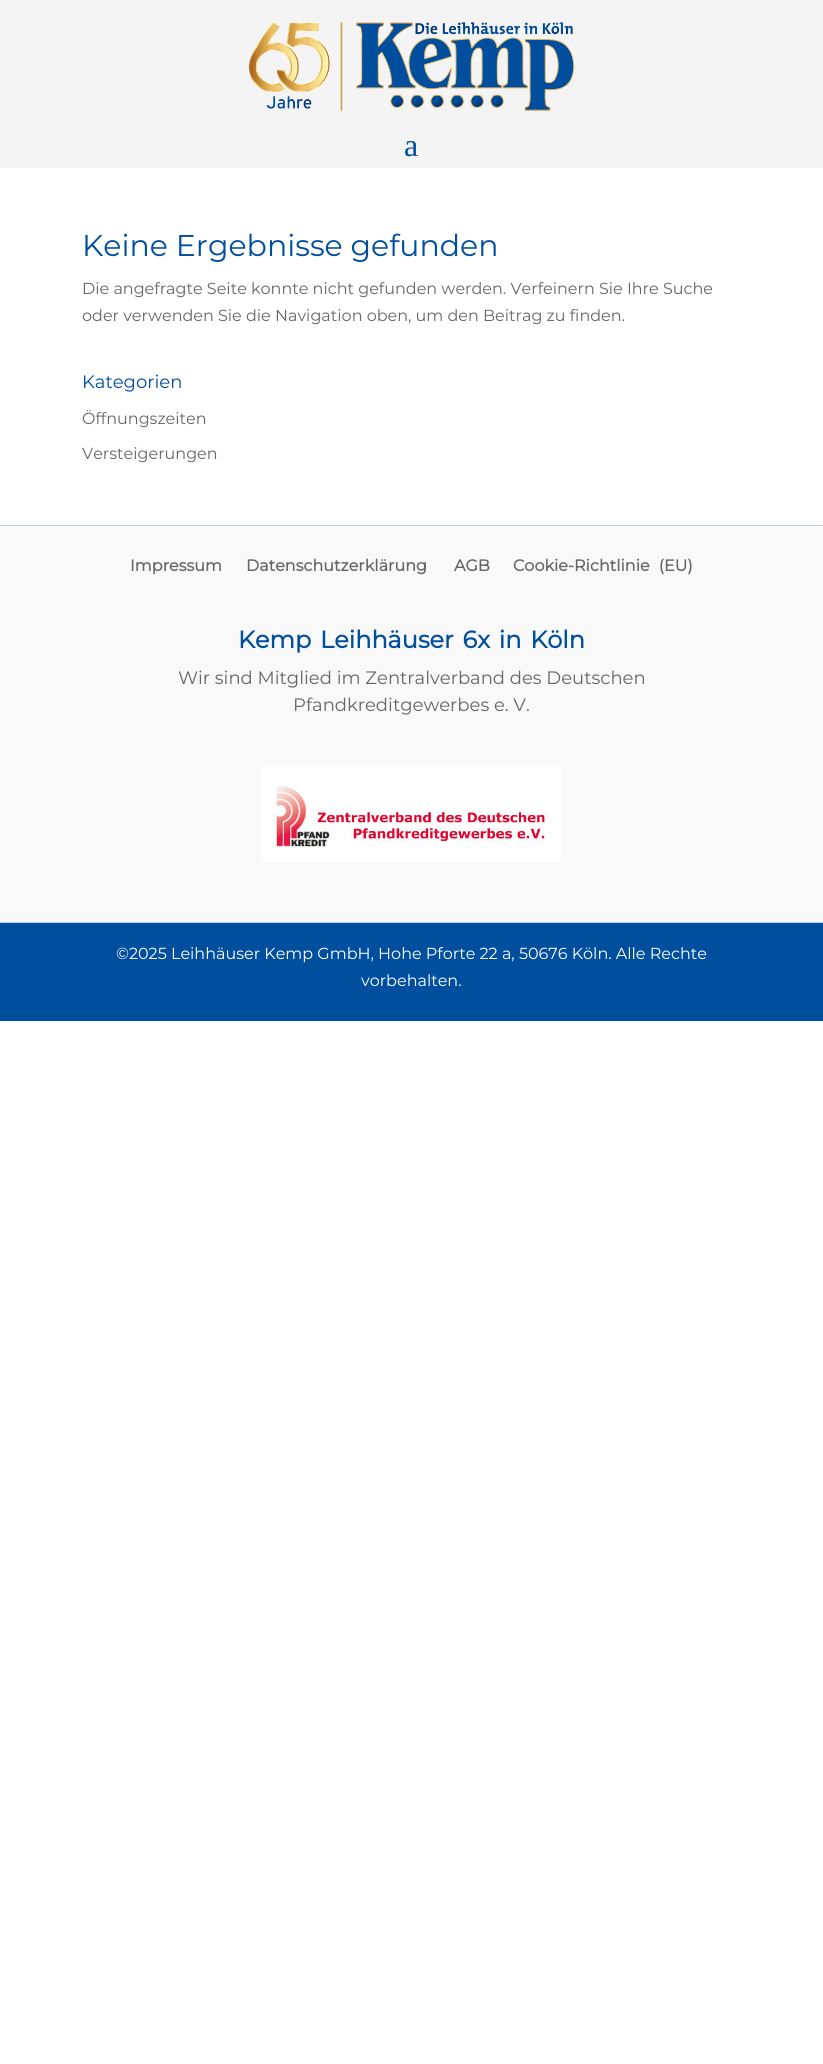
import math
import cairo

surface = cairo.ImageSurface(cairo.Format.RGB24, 823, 2064)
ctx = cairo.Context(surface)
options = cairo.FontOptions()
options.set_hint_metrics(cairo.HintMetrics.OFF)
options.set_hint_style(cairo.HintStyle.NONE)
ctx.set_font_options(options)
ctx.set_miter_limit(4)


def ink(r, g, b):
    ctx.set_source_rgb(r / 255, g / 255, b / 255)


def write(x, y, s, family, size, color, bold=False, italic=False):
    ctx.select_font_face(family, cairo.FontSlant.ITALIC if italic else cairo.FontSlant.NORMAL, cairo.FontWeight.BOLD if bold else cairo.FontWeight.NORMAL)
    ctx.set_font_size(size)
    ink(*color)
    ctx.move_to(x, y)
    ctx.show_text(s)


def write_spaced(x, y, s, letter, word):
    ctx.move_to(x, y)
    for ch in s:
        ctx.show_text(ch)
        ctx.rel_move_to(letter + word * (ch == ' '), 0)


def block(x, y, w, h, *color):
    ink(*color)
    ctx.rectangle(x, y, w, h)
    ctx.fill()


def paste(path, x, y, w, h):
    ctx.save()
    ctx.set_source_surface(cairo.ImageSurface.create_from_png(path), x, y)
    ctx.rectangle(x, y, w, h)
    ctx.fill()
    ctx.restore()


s1 = dict(family="Liberation Serif", size=32, color=(0, 79, 158))
s2 = dict(family="Montserrat", size=30, color=(0, 79, 158))
s3 = dict(family="Montserrat", size=16, color=(102, 102, 102))
s4 = dict(family="Montserrat", size=18, color=(0, 79, 158))
s5 = dict(family="Montserrat", size=16, color=(102, 102, 102), bold=True)
s6 = dict(family="Montserrat", size=18, color=(102, 102, 102))
s7 = dict(family="Montserrat", size=16, color=(255, 255, 255))

ink(255, 255, 255)
ctx.paint()
block(0, 0, 823, 168, 244, 244, 244)
paste("pic1.png", 248, 22, 327, 89)
write(404, 156, "a", **s1)
write(82, 256, "Keine Ergebnisse gefunden", **s2)
write(82, 294, "Die angefragte Seite konnte nicht gefunden werden. Verfeinern Sie Ihre Suche", **s3)
write(82, 321, "oder verwenden Sie die Navigation oben, um den Beitrag zu finden.", **s3)
write(82, 388, "Kategorien", **s4)
write(82, 424, "Öffnungszeiten", **s3)
write(82, 459, "Versteigerungen", **s3)
block(0, 526, 823, 396, 249, 249, 249)
block(0, 525, 823, 1, 195, 205, 224)
write(130, 571, "Impressum", **s5)
write(246, 571, "Datenschutzerklärung", **s5)
write(454, 571, "AGB", **s5)
write_spaced(513, 571, "Cookie-Richtlinie (EU)", 0, 5)
ctx.set_font_size(24)
ink(0, 79, 158)
write_spaced(238, 648, "Kemp Leihhäuser 6x in Köln", 0, 2.5)
write(178, 684, "Wir sind Mitglied im Zentralverband des Deutschen", **s6)
write(293, 711, "Pfandkreditgewerbes e. V.", **s6)
block(261, 767, 300, 95, 255, 255, 255)
paste("pic2.png", 276, 786, 269, 61)
block(0, 923, 823, 98, 0, 79, 158)
block(0, 922, 823, 1, 195, 205, 224)
write(116, 959, "©2025 Leihhäuser Kemp GmbH, Hohe Pforte 22 a, 50676 Köln. Alle Rechte", **s7)
write(361, 986, "vorbehalten.", **s7)
surface.write_to_png("screenshot.png")
